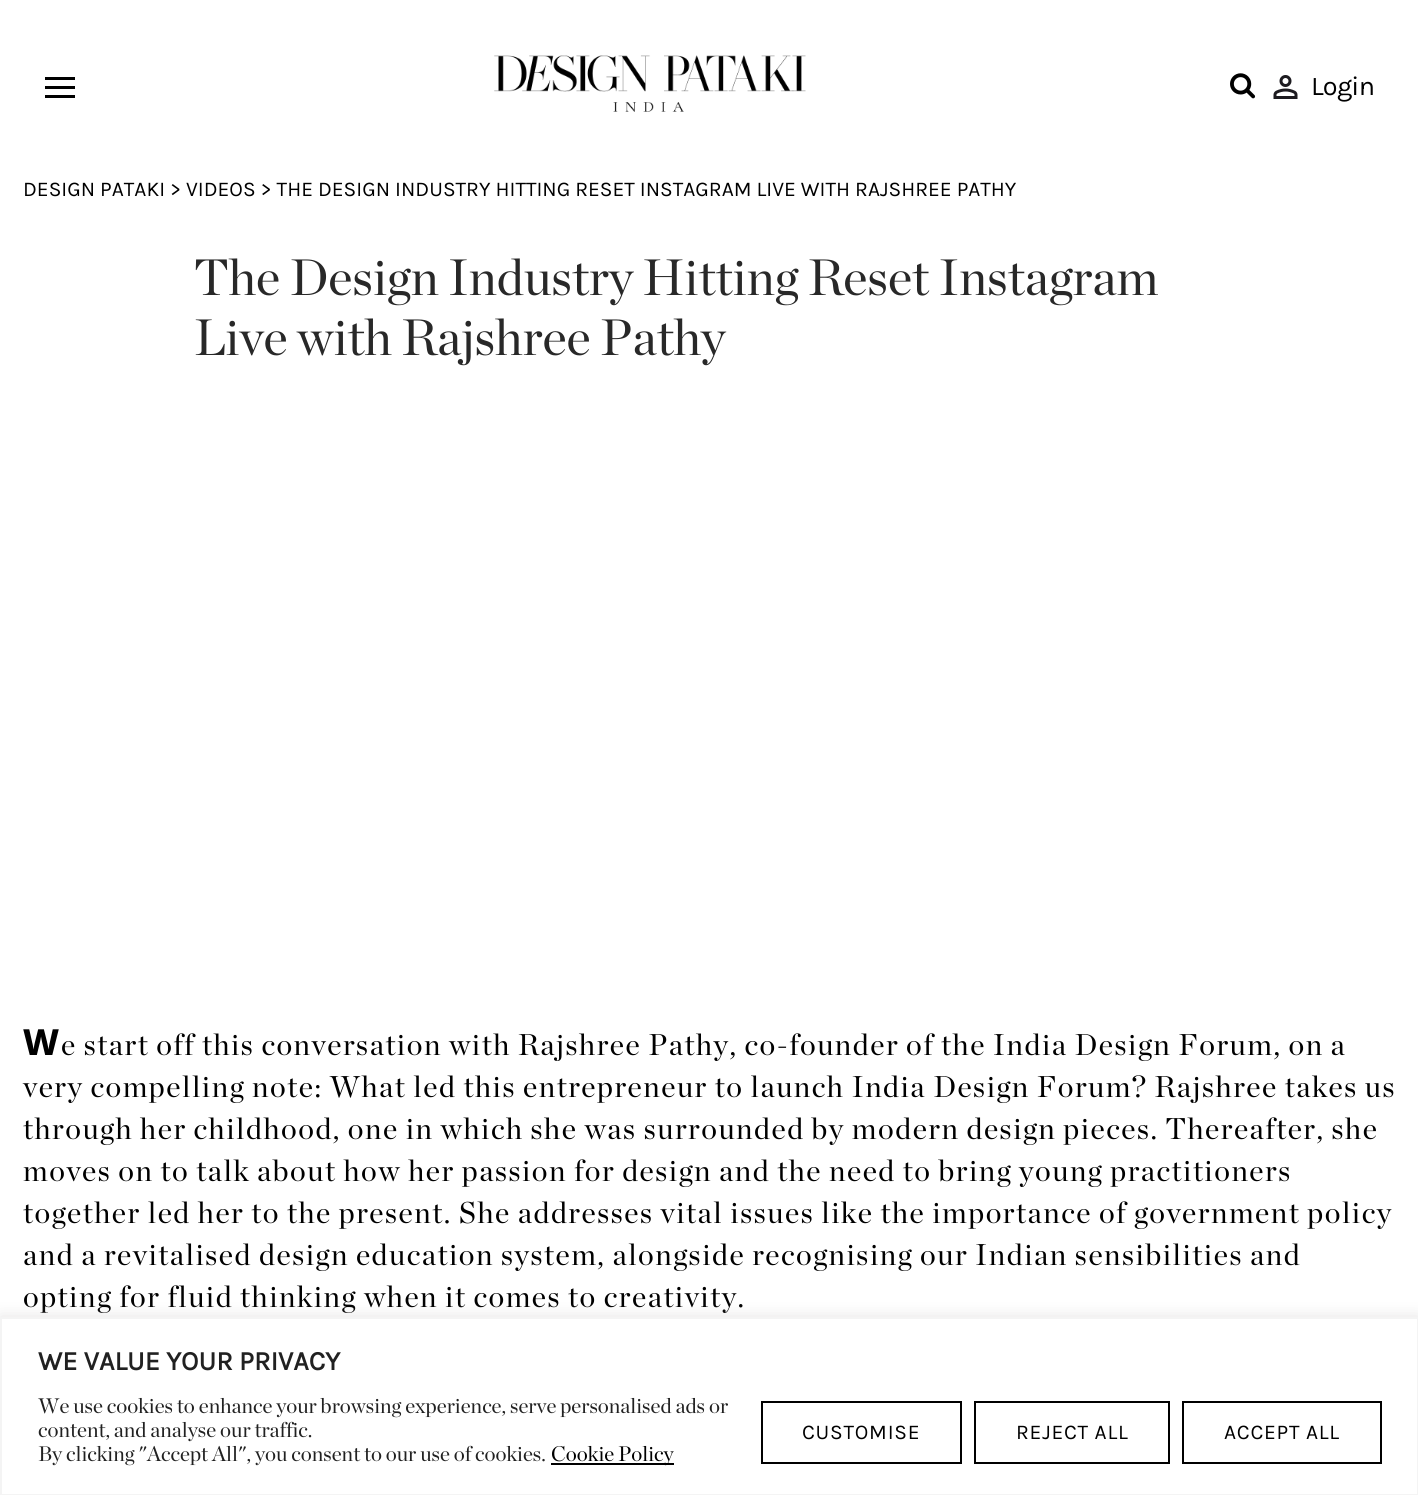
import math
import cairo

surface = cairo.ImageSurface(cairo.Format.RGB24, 1418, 1495)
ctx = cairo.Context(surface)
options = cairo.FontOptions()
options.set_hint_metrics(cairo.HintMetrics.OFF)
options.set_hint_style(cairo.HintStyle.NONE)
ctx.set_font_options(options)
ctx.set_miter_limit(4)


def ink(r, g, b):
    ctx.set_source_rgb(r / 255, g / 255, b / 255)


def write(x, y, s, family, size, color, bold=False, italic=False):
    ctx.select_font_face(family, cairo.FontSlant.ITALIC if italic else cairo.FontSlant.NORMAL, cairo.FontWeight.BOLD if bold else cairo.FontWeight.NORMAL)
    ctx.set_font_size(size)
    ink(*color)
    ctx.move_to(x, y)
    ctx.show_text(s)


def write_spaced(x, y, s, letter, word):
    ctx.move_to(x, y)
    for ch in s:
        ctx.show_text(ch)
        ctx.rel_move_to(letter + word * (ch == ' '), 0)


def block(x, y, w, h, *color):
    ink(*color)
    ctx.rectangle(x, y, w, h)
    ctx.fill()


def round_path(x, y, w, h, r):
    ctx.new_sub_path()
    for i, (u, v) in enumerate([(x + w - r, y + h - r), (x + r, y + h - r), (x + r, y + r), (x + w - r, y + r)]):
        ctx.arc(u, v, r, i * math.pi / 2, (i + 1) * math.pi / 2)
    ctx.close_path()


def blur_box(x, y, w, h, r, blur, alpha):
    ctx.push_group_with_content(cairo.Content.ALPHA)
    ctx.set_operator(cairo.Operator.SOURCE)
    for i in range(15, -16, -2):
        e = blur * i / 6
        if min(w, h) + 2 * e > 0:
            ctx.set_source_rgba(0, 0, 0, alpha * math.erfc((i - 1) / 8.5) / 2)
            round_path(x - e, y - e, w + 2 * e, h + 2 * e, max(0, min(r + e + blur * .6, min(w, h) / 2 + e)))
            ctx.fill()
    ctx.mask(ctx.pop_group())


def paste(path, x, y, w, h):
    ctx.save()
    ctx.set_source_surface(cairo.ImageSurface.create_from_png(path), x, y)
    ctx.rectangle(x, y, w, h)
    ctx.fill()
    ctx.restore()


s1 = dict(family="Karla", size=21, color=(0, 0, 0))
s2 = dict(family="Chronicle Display", size=51, color=(40, 40, 40))
s3 = dict(family="Karla", size=27, color=(33, 33, 33), bold=True)
s4 = dict(family="Chronicle Display", size=21, color=(33, 33, 33))
s5 = dict(family="Chronicle Display", size=21, color=(0, 0, 0))

ink(255, 255, 255)
ctx.paint()
block(45, 77, 30, 3, 0, 0, 0)
block(45, 86, 30, 3, 0, 0, 0)
block(45, 95, 30, 3, 0, 0, 0)
paste("pic1.png", 494, 55, 312, 57)
paste("pic2.png", 1230, 73, 26, 26)
paste("pic3.png", 1273, 75, 25, 24)
ctx.select_font_face("Karla")
ctx.set_font_size(27)
write_spaced(1311, 95, "Login", -0.75, 0)
write(23, 196, "DESIGN PATAKI > VIDEOS > THE DESIGN INDUSTRY HITTING RESET INSTAGRAM LIVE WITH RAJSHREE PATHY", **s1)
write(194, 295, "The Design Industry Hitting Reset Instagram", **s2)
write(194, 355, "Live with Rajshree Pathy", **s2)
ctx.select_font_face("Noto Sans ExtraBold")
ctx.set_font_size(36)
ink(0, 0, 0)
write_spaced(23, 1055, "W", 1.5, 0)
ctx.select_font_face("Chronicle Display")
ctx.set_font_size(30)
write_spaced(61, 1055, "e start off this conversation with Rajshree Pathy, co-founder of the India Design Forum, on a", 1.5, 0)
write_spaced(23, 1097, "very compelling note: What led this entrepreneur to launch India Design Forum? Rajshree takes us", 1.5, 0)
write_spaced(23, 1139, "through her childhood, one in which she was surrounded by modern design pieces. Thereafter, she", 1.5, 0)
write_spaced(23, 1181, "moves on to talk about how her passion for design and the need to bring young practitioners", 1.5, 0)
write_spaced(23, 1223, "together led her to the present. She addresses vital issues like the importance of government policy", 1.5, 0)
write_spaced(23, 1265, "and a revitalised design education system, alongside recognising our Indian sensibilities and", 1.5, 0)
write_spaced(23, 1307, "opting for fluid thinking when it comes to creativity.", 1.5, 0)
ink(172, 171, 171)
blur_box(0, 1316, 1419, 178, 0, 7.5, 0.3)
ink(255, 255, 255)
ctx.rectangle(1, 1318, 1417, 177)
ctx.fill_preserve()
ink(244, 244, 244)
ctx.stroke()
write(38, 1370, "WE VALUE YOUR PRIVACY", **s3)
write(38, 1413, "We use cookies to enhance your browsing experience, serve personalised ads or", **s4)
write(38, 1437, "content, and analyse our traffic.", **s4)
write(38, 1461, "By clicking \"Accept All\", you consent to our use of cookies.", **s4)
block(551, 1463, 123, 2, 0, 0, 0)
write(551, 1461, "Cookie Policy", **s5)
ctx.rectangle(762, 1402, 199, 61)
ctx.stroke()
ctx.select_font_face("Karla")
write_spaced(802, 1439, "CUSTOMISE", 0.75, 0)
ctx.rectangle(975, 1402, 194, 61)
ctx.stroke()
write_spaced(1016, 1439, "REJECT ALL", 0.75, 0)
ctx.rectangle(1183, 1402, 198, 61)
ctx.stroke()
write_spaced(1224, 1439, "ACCEPT ALL", 0.75, 0)
surface.write_to_png("screenshot.png")
